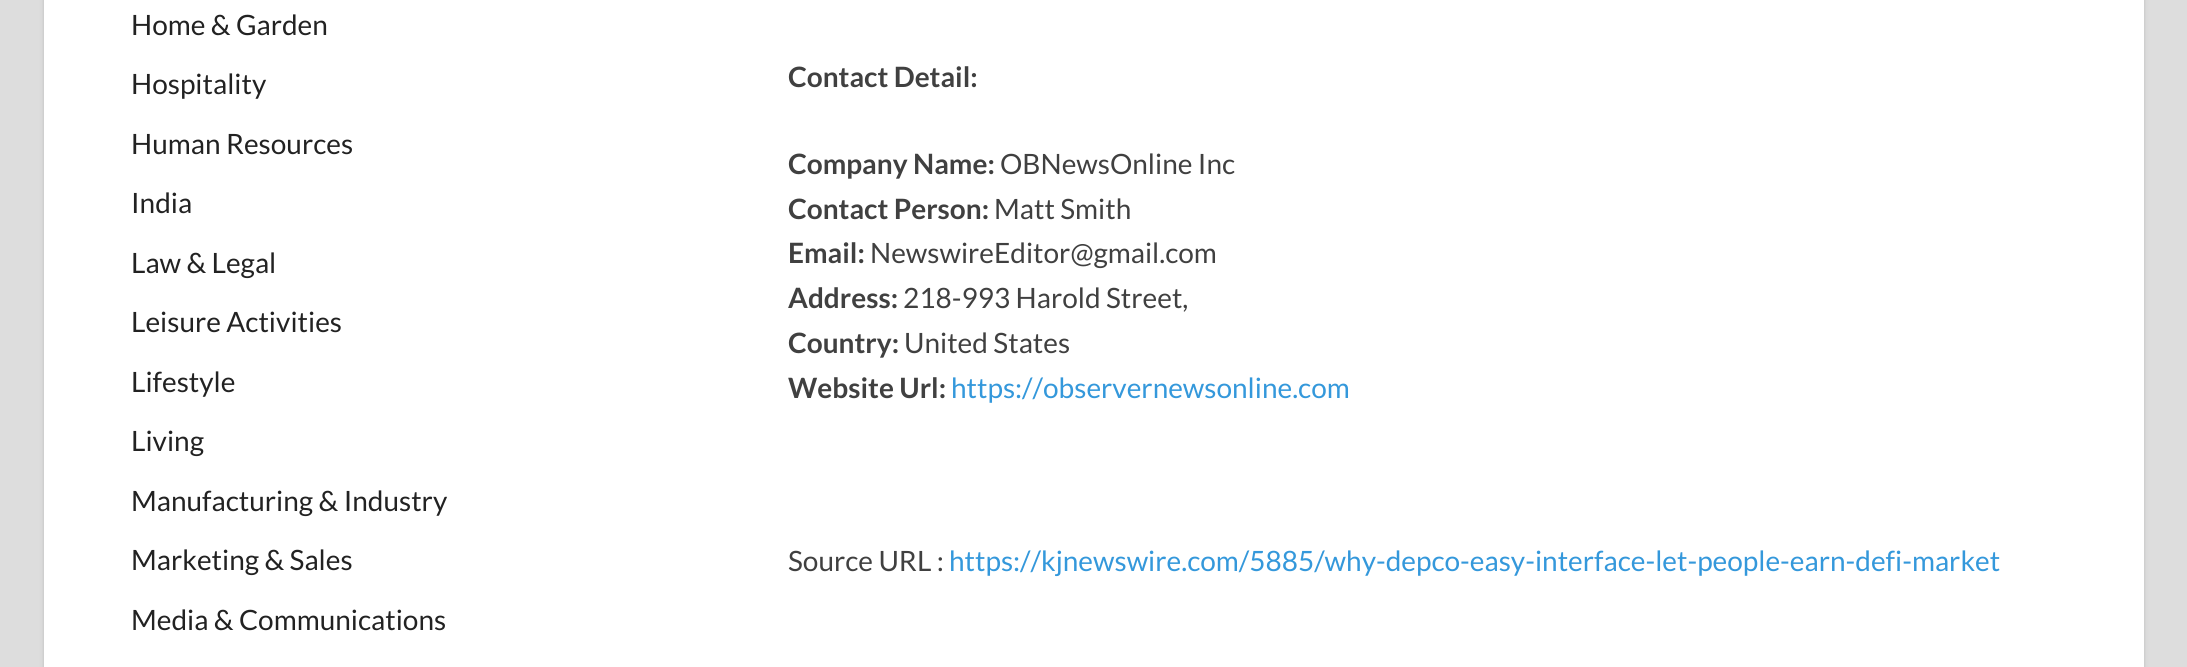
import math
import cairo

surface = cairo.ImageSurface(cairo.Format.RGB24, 2187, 667)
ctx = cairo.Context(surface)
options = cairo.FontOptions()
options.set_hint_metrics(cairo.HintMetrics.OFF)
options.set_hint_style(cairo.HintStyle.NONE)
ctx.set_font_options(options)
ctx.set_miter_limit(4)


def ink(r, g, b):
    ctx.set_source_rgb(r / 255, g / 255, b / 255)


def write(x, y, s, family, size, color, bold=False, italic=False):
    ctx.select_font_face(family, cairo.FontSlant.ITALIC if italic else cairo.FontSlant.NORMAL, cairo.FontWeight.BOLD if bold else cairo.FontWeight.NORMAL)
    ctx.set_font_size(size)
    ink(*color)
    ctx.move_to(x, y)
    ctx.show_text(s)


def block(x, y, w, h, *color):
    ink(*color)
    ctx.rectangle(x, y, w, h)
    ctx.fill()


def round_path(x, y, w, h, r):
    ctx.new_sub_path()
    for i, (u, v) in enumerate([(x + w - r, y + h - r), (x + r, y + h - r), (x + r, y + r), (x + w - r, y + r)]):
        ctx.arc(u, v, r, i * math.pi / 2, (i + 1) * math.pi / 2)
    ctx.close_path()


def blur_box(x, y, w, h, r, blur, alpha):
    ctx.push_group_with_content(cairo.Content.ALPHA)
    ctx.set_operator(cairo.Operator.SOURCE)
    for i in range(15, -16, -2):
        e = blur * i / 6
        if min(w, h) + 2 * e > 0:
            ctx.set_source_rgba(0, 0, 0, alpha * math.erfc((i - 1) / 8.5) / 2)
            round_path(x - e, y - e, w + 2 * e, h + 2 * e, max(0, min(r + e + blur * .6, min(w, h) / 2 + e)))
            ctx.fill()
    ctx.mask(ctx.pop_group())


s1 = dict(family="Lato", size=28, color=(34, 34, 34))
s2 = dict(family="Lato", size=28, color=(64, 64, 64), bold=True)
s3 = dict(family="Lato", size=28, color=(64, 64, 64))
s4 = dict(family="Lato", size=28, color=(52, 152, 219))

ink(221, 221, 221)
ctx.paint()
ink(187, 187, 187)
blur_box(44, -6, 2100, 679, 0, 2, 1)
block(44, 0, 2100, 667, 255, 255, 255)
write(131, 35, "Home & Garden", **s1)
write(131, 94, "Hospitality", **s1)
write(131, 154, "Human Resources", **s1)
write(131, 213, "India", **s1)
write(131, 273, "Law & Legal", **s1)
write(131, 332, "Leisure Activities", **s1)
write(131, 392, "Lifestyle", **s1)
write(131, 451, "Living", **s1)
write(131, 511, "Manufacturing & Industry", **s1)
write(131, 570, "Marketing & Sales", **s1)
write(131, 630, "Media & Communications", **s1)
write(788, 87, "Contact Detail:", **s2)
write(788, 174, "Company Name:", **s2)
write(1000, 174, "OBNewsOnline Inc", **s3)
write(788, 219, "Contact Person:", **s2)
write(994, 219, "Matt Smith", **s3)
write(788, 263, "Email:", **s2)
write(870, 263, "NewswireEditor@gmail.com", **s3)
write(788, 308, "Address:", **s2)
write(903, 308, "218-993 Harold Street,", **s3)
write(788, 353, "Country:", **s2)
write(904, 353, "United States", **s3)
write(788, 398, "Website Url:", **s2)
write(951, 398, "https://observernewsonline.com", **s4)
write(788, 571, "Source URL :", **s3)
write(949, 571, "https://kjnewswire.com/5885/why-depco-easy-interface-let-people-earn-defi-market", **s4)
surface.write_to_png("screenshot.png")
